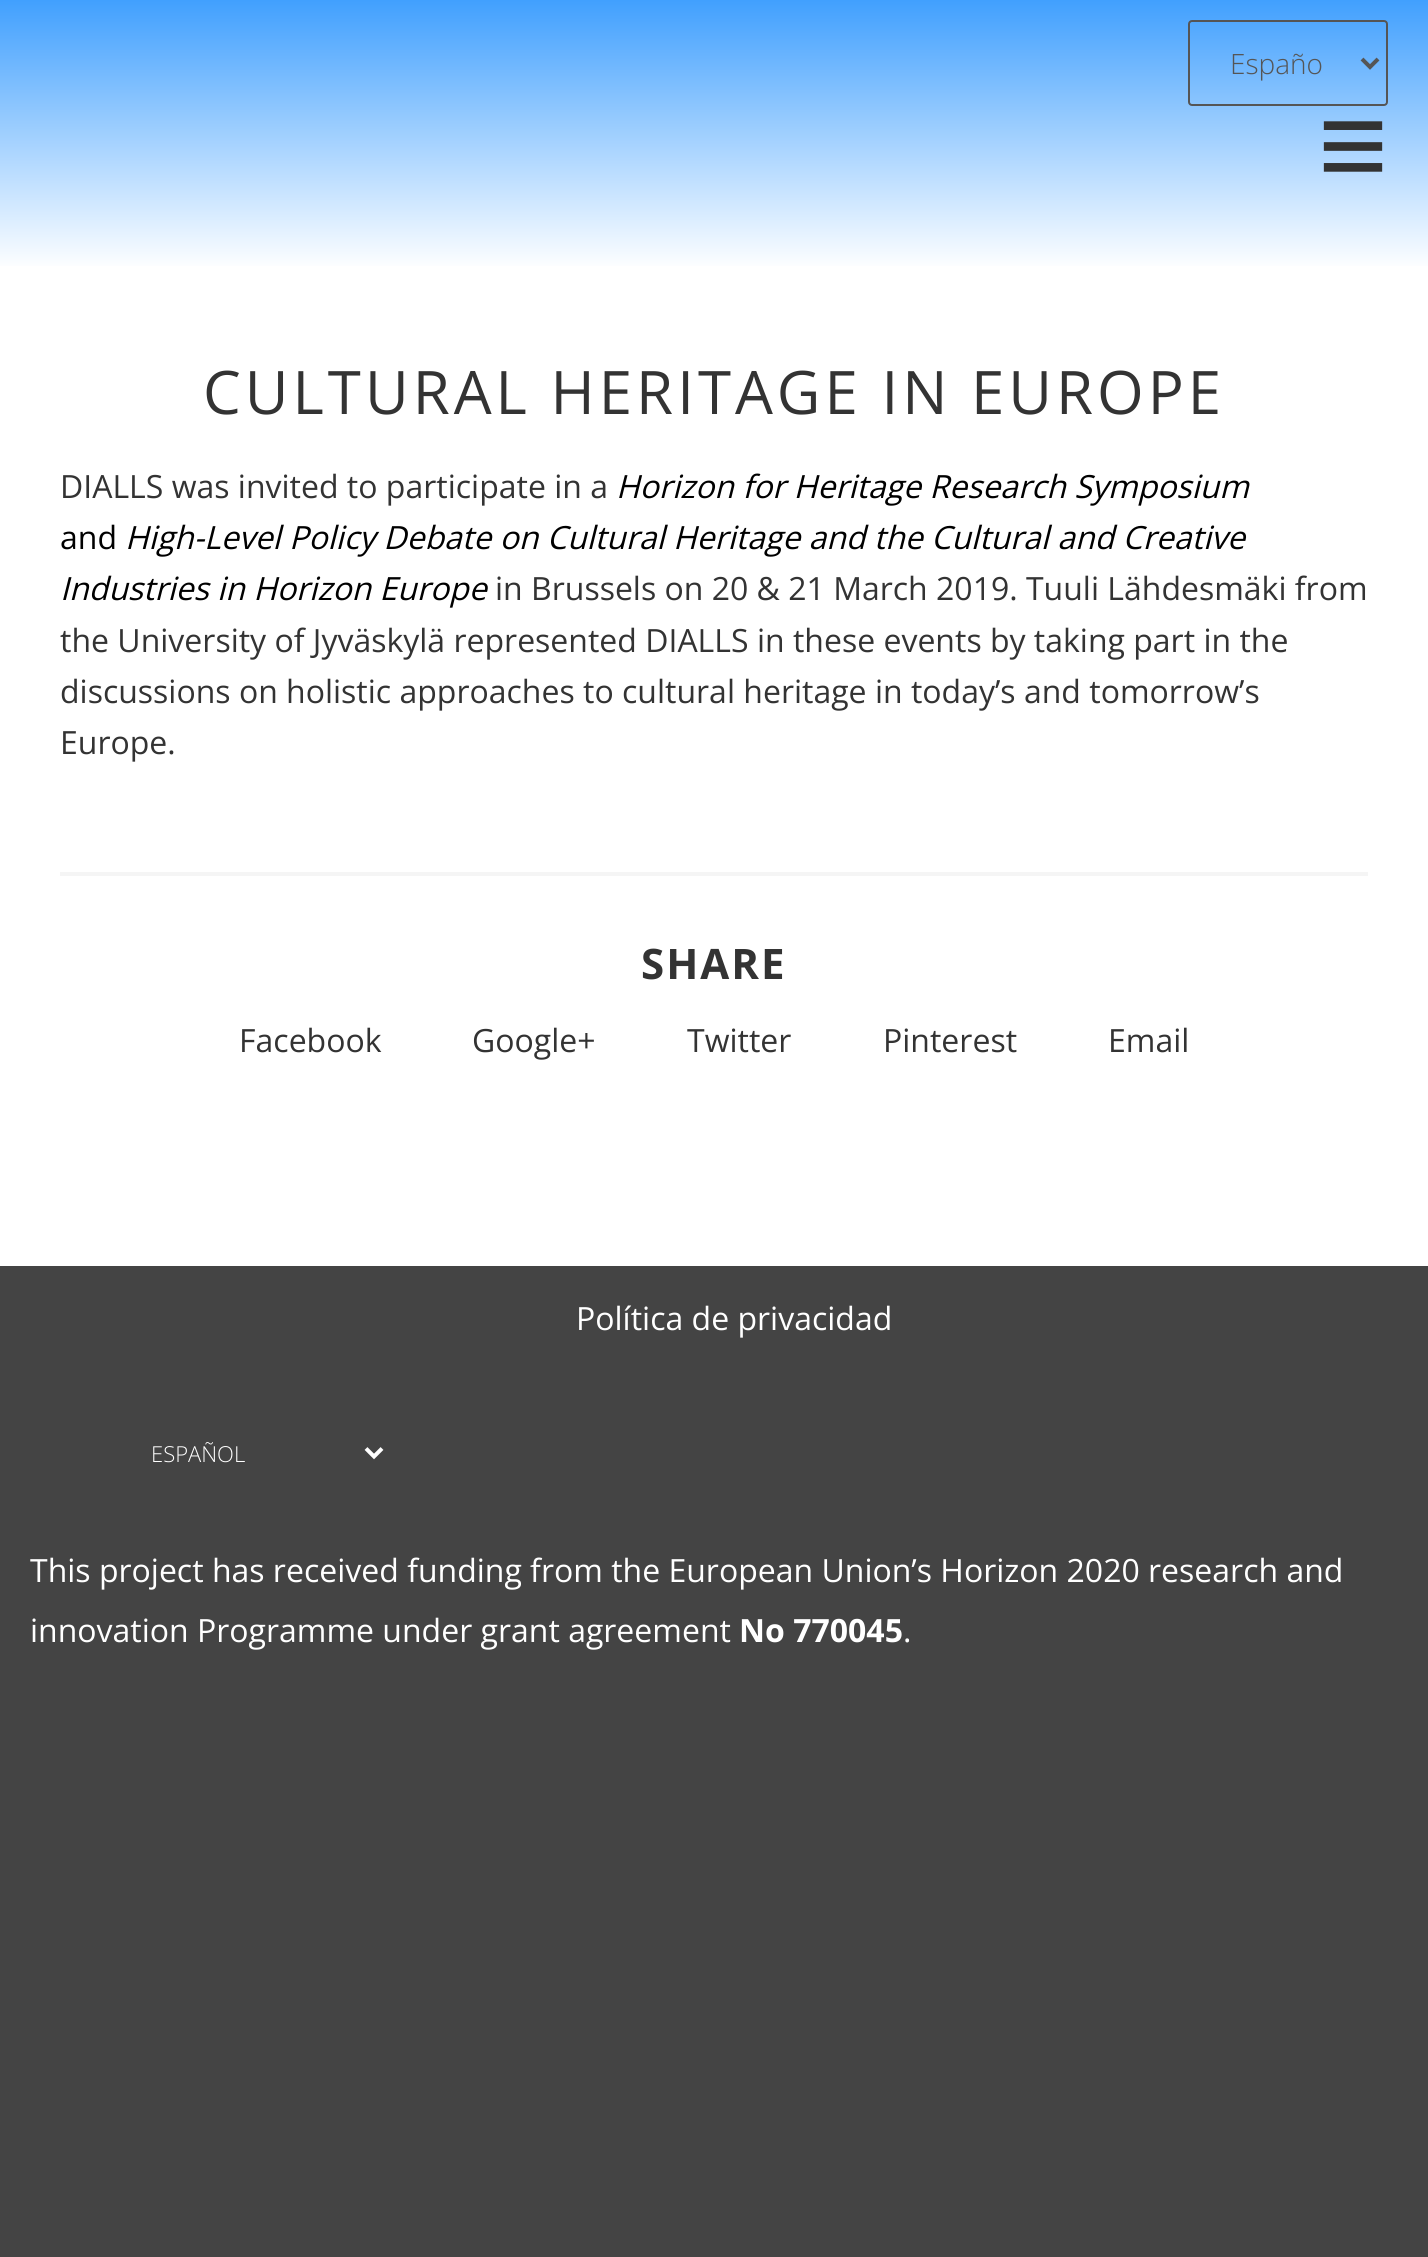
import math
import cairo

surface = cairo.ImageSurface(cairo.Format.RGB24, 1428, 2257)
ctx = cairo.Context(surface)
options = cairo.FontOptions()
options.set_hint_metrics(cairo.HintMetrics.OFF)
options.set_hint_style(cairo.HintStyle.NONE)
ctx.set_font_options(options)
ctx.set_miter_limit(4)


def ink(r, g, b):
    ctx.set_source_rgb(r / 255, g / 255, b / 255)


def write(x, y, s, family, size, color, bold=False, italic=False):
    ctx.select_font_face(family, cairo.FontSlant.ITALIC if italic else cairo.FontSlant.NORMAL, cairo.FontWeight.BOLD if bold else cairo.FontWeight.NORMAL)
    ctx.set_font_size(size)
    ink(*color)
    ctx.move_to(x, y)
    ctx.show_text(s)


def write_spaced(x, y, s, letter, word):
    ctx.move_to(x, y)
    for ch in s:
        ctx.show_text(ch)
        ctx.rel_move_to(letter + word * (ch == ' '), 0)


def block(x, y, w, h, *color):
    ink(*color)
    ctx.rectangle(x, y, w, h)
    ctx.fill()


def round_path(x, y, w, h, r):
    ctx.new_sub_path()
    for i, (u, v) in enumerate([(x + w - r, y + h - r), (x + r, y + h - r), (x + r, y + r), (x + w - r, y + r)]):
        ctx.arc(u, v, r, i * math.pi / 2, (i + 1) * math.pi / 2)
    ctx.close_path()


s1 = dict(family="Open Sans Light", size=28, color=(85, 85, 85))
s2 = dict(family="Liberation Sans", size=120, color=(51, 51, 51), bold=True)
s3 = dict(family="Open Sans", size=32, color=(51, 51, 51))
s4 = dict(family="Open Sans", size=32, color=(0, 0, 0), italic=True)
s5 = dict(family="Open Sans", size=32, color=(0, 0, 0))
s6 = dict(family="Open Sans", size=32, color=(255, 255, 255))
s7 = dict(family="Open Sans Light", size=22, color=(255, 255, 255))
s8 = dict(family="Open Sans", size=32, color=(255, 255, 255), bold=True)

ink(255, 255, 255)
ctx.paint()
gradient = cairo.LinearGradient(714, 0, 714, 300)
gradient.add_color_stop_rgba(0, 0.255, 0.627, 0.996, 1)
gradient.add_color_stop_rgba(0.9, 1, 1, 1, 1)
ctx.set_source(gradient)
ctx.rectangle(0, 0, 1428, 266)
ctx.fill()
round_path(1189, 21, 198, 84, 3)
ink(85, 85, 85)
ctx.stroke()
ctx.new_path()
ctx.move_to(1362, 59)
ctx.line_to(1370, 67)
ctx.line_to(1378, 59)
ctx.set_line_width(4)
ctx.stroke()
write(1230, 74, "Españo", **s1)
write(1318, 186, "≡", **s2)
ctx.select_font_face("Open Sans")
ctx.set_font_size(60)
write_spaced(203, 414, "CULTURAL HERITAGE IN EUROPE", 4, 0)
block(60, 872, 1308, 4, 245, 245, 245)
write(60, 498, "DIALLS was invited to participate in a", **s3)
write(616, 498, "Horizon for Heritage Research Symposium", **s4)
write(60, 549, "and", **s5)
write(125, 549, "High-Level Policy Debate on Cultural Heritage and the Cultural and Creative", **s4)
write(60, 600, "Industries in Horizon Europe", **s4)
write(495, 600, "in Brussels on 20 & 21 March 2019. Tuuli Lähdesmäki from", **s3)
write(60, 652, "the University of Jyväskylä represented DIALLS in these events by taking part in the", **s3)
write(60, 703, "discussions on holistic approaches to cultural heritage in today’s and tomorrow’s", **s3)
write(60, 754, "Europe.", **s3)
ctx.select_font_face("Open Sans", cairo.FontSlant.NORMAL, cairo.FontWeight.BOLD)
ctx.set_font_size(42)
write_spaced(641, 979, "SHARE", 2, 0)
write(239, 1052, "Facebook", **s3)
write(472, 1052, "Google+", **s3)
write(687, 1052, "Twitter", **s3)
write(883, 1052, "Pinterest", **s3)
write(1108, 1052, "Email", **s3)
block(0, 1266, 1428, 991, 68, 68, 68)
write(576, 1330, "Política de privacidad", **s6)
ctx.new_path()
ctx.move_to(366, 1448.5)
ctx.line_to(374, 1456.5)
ctx.line_to(382, 1448.5)
ctx.stroke()
write(151, 1462, "ESPAÑOL", **s7)
write(30, 1582, "This project has received funding from the European Union’s Horizon 2020 research and", **s6)
write(30, 1642, "innovation Programme under grant agreement", **s6)
write(739, 1642, "No 770045", **s8)
write(903, 1642, ".", **s6)
surface.write_to_png("screenshot.png")
